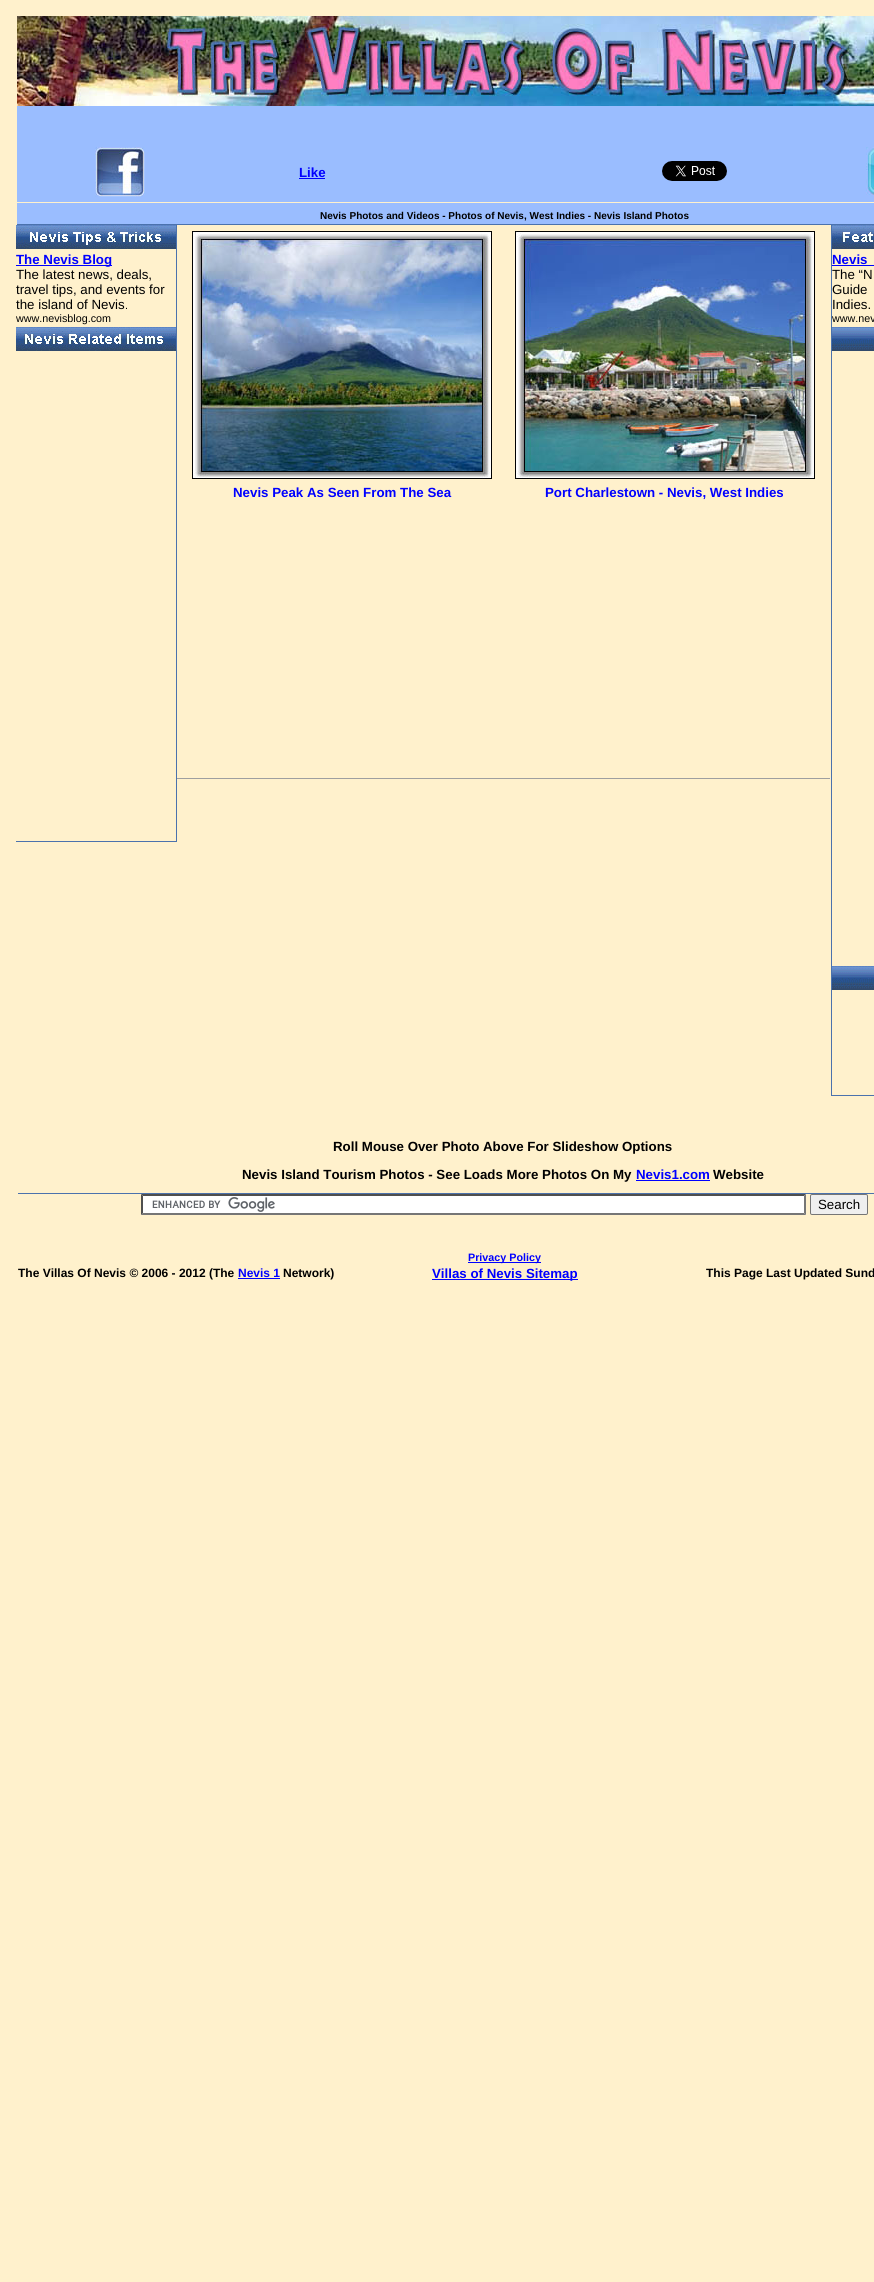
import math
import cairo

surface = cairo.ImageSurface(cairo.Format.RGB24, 874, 2282)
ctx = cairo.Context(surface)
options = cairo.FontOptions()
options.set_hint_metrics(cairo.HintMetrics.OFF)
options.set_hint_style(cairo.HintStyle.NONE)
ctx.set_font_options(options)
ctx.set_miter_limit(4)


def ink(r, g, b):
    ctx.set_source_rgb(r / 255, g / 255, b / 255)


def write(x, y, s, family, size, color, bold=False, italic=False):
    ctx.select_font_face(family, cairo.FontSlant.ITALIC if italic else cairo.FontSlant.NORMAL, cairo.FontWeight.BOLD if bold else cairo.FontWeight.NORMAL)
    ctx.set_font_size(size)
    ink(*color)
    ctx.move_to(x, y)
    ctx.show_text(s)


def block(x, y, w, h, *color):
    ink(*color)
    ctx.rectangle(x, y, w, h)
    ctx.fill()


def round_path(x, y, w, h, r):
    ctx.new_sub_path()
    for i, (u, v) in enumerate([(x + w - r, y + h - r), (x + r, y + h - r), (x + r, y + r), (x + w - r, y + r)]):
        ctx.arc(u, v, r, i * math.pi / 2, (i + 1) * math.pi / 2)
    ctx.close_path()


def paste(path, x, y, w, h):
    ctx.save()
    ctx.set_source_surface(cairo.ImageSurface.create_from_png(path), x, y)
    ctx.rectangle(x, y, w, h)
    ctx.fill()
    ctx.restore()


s1 = dict(family="Liberation Sans", size=13.3, color=(0, 0, 255), bold=True)
s2 = dict(family="Liberation Sans", size=10, color=(0, 0, 0), bold=True)
s3 = dict(family="Liberation Sans", size=13.3, color=(0, 0, 0))
s4 = dict(family="Liberation Sans", size=10.75, color=(0, 0, 0))
s5 = dict(family="Liberation Sans", size=13.3, color=(0, 0, 0), bold=True)
s6 = dict(family="Liberation Sans", size=10.75, color=(0, 0, 255), bold=True)
s7 = dict(family="Liberation Sans", size=12, color=(0, 0, 0), bold=True)
s8 = dict(family="Liberation Sans", size=12, color=(0, 0, 255), bold=True)

ink(255, 241, 204)
ctx.paint()
paste("pic1.png", 17, 16, 857, 90)
block(17, 106, 857, 96, 154, 189, 255)
paste("pic2.png", 95, 147, 50, 50)
write(299, 177, "Like", **s1)
block(299, 178, 26, 1, 0, 0, 255)
paste("pic3.png", 662, 161, 65, 20)
paste("pic4.png", 866, 147, 8, 48)
block(17, 203, 857, 21, 154, 189, 255)
block(17, 224, 857, 1, 75, 114, 173)
write(320, 219, "Nevis Photos and Videos - Photos of Nevis, West Indies - Nevis Island Photos", **s2)
block(176, 225, 1, 617, 75, 114, 173)
paste("pic5.png", 16, 225, 160, 24)
block(16, 265, 96, 1, 0, 0, 255)
write(16, 264, "The Nevis Blog", **s1)
write(16, 279, "The latest news, deals,", **s3)
write(16, 294, "travel tips, and events for", **s3)
write(16, 309, "the island of Nevis", **s3)
write(125, 309, ".", **s4)
write(16, 322, "www.nevisblog.com", **s4)
paste("pic6.png", 16, 327, 160, 24)
block(16, 841, 161, 1, 75, 114, 173)
block(831, 225, 1, 765, 75, 114, 173)
paste("pic7.png", 832, 225, 42, 24)
write(832, 264, "Nevis", **s1)
block(832, 265, 42, 1, 0, 0, 255)
write(832, 279, "The “N", **s3)
write(832, 294, "Guide", **s3)
write(832, 309, "Indies.", **s3)
write(832, 322, "www.nev", **s4)
paste("pic8.png", 832, 327, 42, 24)
paste("pic8.png", 832, 966, 42, 24)
block(831, 1095, 43, 1, 75, 114, 173)
block(831, 990, 1, 106, 75, 114, 173)
paste("pic9.png", 192, 231, 300, 248)
paste("pic10.png", 515, 231, 300, 248)
write(233, 497, "Nevis Peak As Seen From The Sea", **s1)
write(545, 497, "Port Charlestown - Nevis, West Indies", **s1)
block(177, 778, 654, 1, 159, 159, 159)
block(830, 778, 1, 1, 238, 238, 238)
write(333, 1151, "Roll Mouse Over Photo Above For Slideshow Options", **s5)
write(242, 1179, "Nevis Island Tourism Photos - See Loads More Photos On My", **s5)
write(636, 1179, "Nevis1.com", **s1)
block(636, 1180, 74, 1, 0, 0, 255)
write(713, 1179, "Website", **s5)
block(18, 1193, 856, 1, 75, 114, 173)
block(141, 1194, 665, 21, 255, 255, 255)
paste("pic11.png", 152, 1197, 123, 15)
ink(79, 79, 79)
ctx.new_path()
ctx.move_to(141, 1194)
ctx.line_to(806, 1194)
ctx.line_to(804, 1196)
ctx.line_to(143, 1196)
ctx.close_path()
ctx.fill()
ink(118, 118, 118)
ctx.new_path()
ctx.move_to(806, 1194)
ctx.line_to(806, 1215)
ctx.line_to(804, 1213)
ctx.line_to(804, 1196)
ctx.close_path()
ctx.fill()
ctx.new_path()
ctx.move_to(806, 1215)
ctx.line_to(141, 1215)
ctx.line_to(143, 1213)
ctx.line_to(804, 1213)
ctx.close_path()
ctx.fill()
ink(79, 79, 79)
ctx.new_path()
ctx.move_to(141, 1215)
ctx.line_to(141, 1194)
ctx.line_to(143, 1196)
ctx.line_to(143, 1213)
ctx.close_path()
ctx.fill()
ink(239, 239, 239)
round_path(810.5, 1194.5, 57, 20, 1.5)
ctx.fill_preserve()
ink(118, 118, 118)
ctx.set_line_width(1)
ctx.stroke()
write(818, 1209, "Search", **s3)
block(468, 1262, 73, 1, 0, 0, 255)
write(468, 1261, "Privacy Policy", **s6)
write(18, 1277, "The Villas Of Nevis © 2006 - 2012 (The", **s7)
write(238, 1277, "Nevis 1", **s8)
block(238, 1278, 42, 1, 0, 0, 255)
write(283, 1277, "Network)", **s7)
block(432, 1279, 146, 1, 0, 0, 255)
write(432, 1278, "Villas of Nevis Sitemap", **s1)
write(706, 1277, "This Page Last Updated Sund", **s7)
surface.write_to_png("screenshot.png")
